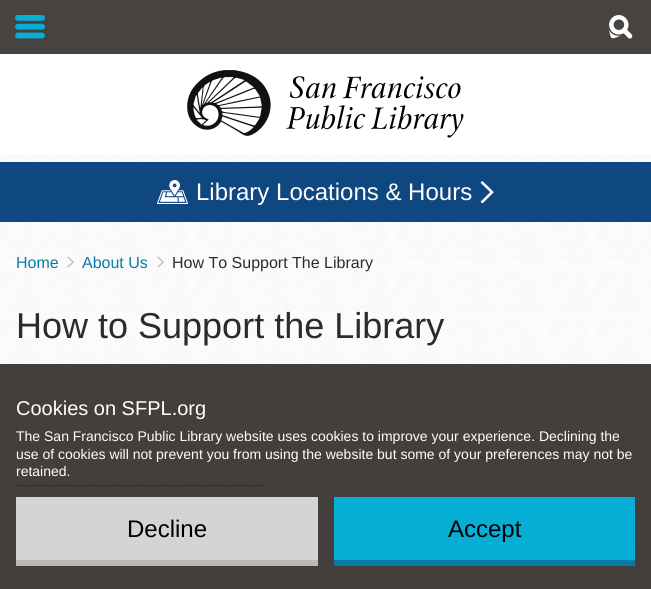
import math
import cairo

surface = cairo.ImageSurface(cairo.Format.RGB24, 651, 589)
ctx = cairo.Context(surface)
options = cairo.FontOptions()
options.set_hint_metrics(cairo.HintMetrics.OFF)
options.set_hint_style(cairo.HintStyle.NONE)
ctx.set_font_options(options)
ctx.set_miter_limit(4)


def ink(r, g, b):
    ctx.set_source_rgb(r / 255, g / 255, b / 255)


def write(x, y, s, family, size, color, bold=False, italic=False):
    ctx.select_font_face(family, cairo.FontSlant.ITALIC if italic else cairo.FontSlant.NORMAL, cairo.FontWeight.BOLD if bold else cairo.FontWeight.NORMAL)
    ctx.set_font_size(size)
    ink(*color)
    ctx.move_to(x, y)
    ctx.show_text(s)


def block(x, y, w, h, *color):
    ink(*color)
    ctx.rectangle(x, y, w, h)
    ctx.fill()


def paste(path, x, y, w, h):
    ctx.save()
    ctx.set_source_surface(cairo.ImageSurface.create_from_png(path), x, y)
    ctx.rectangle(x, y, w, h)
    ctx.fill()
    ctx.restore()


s1 = dict(family="Liberation Sans", size=24, color=(255, 255, 255))
s2 = dict(family="Liberation Sans", size=16, color=(8, 124, 167))
s3 = dict(family="Liberation Sans", size=16, color=(46, 42, 39))
s4 = dict(family="Liberation Sans", size=36, color=(46, 42, 39))
s5 = dict(family="Liberation Sans", size=20, color=(255, 255, 255))
s6 = dict(family="Liberation Sans", size=14, color=(255, 255, 255))
s7 = dict(family="Liberation Sans", size=24, color=(0, 0, 0))

ink(255, 255, 255)
ctx.paint()
paste("pic1.png", 0, 154, 651, 435)
block(0, 0, 651, 54, 71, 67, 64)
paste("pic2.png", 15, 15, 30, 24)
paste("pic3.png", 609, 15, 24, 24)
paste("pic4.png", 187, 70, 277, 68)
block(0, 162, 651, 60, 15, 72, 128)
paste("pic5.png", 157, 180, 31, 24)
write(196, 200, "Library Locations & Hours", **s1)
paste("pic6.png", 480, 181, 14, 23)
write(16, 268, "Home", **s2)
paste("pic7.png", 67, 256, 7, 12)
write(82, 268, "About Us", **s2)
paste("pic8.png", 157, 256, 7, 12)
write(172, 268, "How To Support The Library", **s3)
write(16, 338, "How to Support the Library", **s4)
block(406, 457, 222, 1, 8, 124, 167)
block(16, 485, 248, 1, 8, 124, 167)
ctx.set_source_rgba(0.18, 0.165, 0.153, 0.9)
ctx.rectangle(0, 364, 651, 225)
ctx.fill()
write(16, 415, "Cookies on SFPL.org", **s5)
write(16, 441, "The San Francisco Public Library website uses cookies to improve your experience. Declining the", **s6)
write(16, 459, "use of cookies will not prevent you from using the website but some of your preferences may not be", **s6)
write(16, 476, "retained.", **s6)
block(16, 560, 302, 6, 187, 184, 181)
block(16, 497, 302, 63, 214, 212, 210)
write(127, 537, "Decline", **s7)
block(334, 560, 301, 6, 8, 124, 167)
block(334, 497, 301, 63, 6, 174, 213)
write(448, 537, "Accept", **s7)
surface.write_to_png("screenshot.png")
